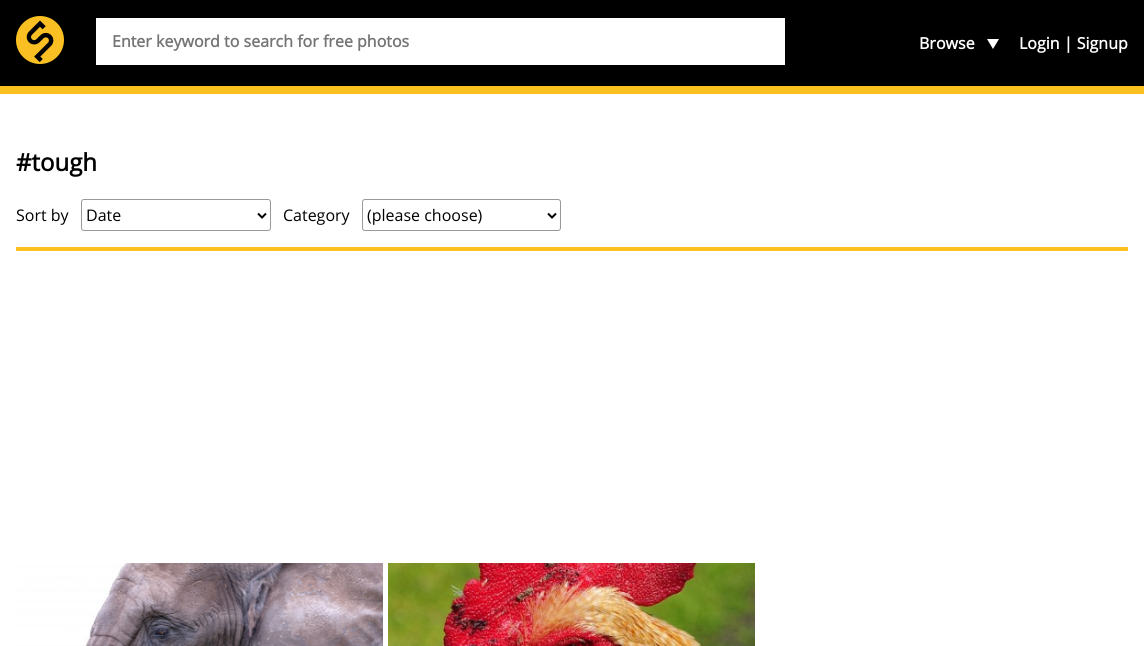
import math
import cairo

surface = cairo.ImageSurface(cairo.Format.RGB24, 1144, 646)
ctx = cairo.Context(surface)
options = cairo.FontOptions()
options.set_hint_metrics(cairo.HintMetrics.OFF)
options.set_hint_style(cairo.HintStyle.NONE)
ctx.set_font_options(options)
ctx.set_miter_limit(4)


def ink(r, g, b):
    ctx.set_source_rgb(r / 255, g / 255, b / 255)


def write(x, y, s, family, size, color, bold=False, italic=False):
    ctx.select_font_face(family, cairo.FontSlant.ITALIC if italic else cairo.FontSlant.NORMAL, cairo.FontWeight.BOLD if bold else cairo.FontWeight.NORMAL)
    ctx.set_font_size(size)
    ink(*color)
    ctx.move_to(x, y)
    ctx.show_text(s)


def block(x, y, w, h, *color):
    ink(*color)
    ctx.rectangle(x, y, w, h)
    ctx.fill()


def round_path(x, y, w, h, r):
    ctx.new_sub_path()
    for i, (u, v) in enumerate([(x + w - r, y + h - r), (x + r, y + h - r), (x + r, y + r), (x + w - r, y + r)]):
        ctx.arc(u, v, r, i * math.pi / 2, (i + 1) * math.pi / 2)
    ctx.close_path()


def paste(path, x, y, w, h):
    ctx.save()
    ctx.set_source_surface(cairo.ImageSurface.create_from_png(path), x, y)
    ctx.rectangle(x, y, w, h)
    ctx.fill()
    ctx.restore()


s1 = dict(family="Open Sans", size=16, color=(117, 117, 117), bold=True)
s2 = dict(family="Open Sans", size=16, color=(255, 255, 255), bold=True)
s3 = dict(family="Open Sans", size=24, color=(0, 0, 0), bold=True)
s4 = dict(family="Open Sans", size=16, color=(0, 0, 0))

ink(255, 255, 255)
ctx.paint()
block(0, 0, 1144, 86, 0, 0, 0)
block(0, 86, 1144, 8, 252, 192, 33)
paste("pic1.png", 16, 16, 48, 48)
block(96, 18, 689, 47, 255, 255, 255)
write(112, 47, "Enter keyword to search for free photos", **s1)
write(919, 49, "Browse", **s2)
ctx.new_path()
ctx.move_to(987, 39)
ctx.line_to(999, 39)
ctx.line_to(993, 49)
ctx.close_path()
ctx.fill()
write(1019, 49, "Login | Signup", **s2)
write(16, 171, "#tough", **s3)
write(16, 221, "Sort by", **s4)
round_path(81.5, 199.5, 189, 31, 2.5)
ink(153, 153, 153)
ctx.set_line_width(1)
ctx.stroke()
ctx.new_path()
ctx.move_to(258, 213.5)
ctx.line_to(262, 217.5)
ctx.line_to(266, 213.5)
ink(0, 0, 0)
ctx.set_line_width(2)
ctx.stroke()
write(86, 221, "Date", **s4)
write(283, 221, "Category", **s4)
round_path(362.5, 199.5, 198, 31, 2.5)
ink(153, 153, 153)
ctx.set_line_width(1)
ctx.stroke()
ctx.new_path()
ctx.move_to(548, 213.5)
ctx.line_to(552, 217.5)
ctx.line_to(556, 213.5)
ink(0, 0, 0)
ctx.set_line_width(2)
ctx.stroke()
write(367, 221, "(please choose)", **s4)
block(16, 247, 1112, 4, 252, 192, 33)
paste("pic2.png", 16, 563, 367, 83)
paste("pic3.png", 388, 563, 367, 83)
surface.write_to_png("screenshot.png")
